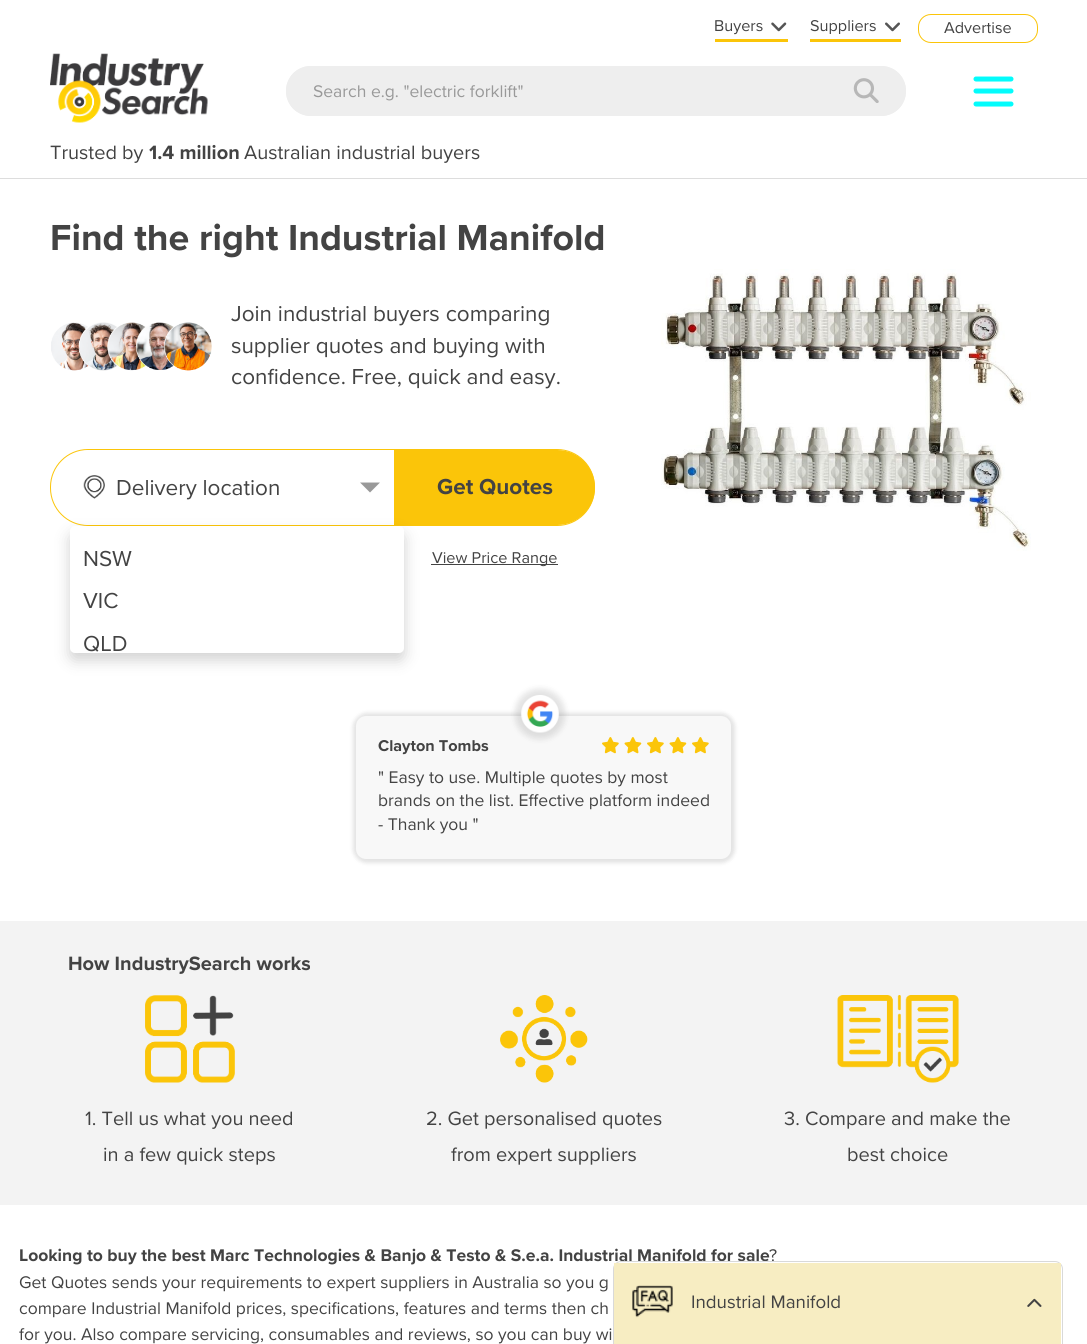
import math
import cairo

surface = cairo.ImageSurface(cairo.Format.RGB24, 1087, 1344)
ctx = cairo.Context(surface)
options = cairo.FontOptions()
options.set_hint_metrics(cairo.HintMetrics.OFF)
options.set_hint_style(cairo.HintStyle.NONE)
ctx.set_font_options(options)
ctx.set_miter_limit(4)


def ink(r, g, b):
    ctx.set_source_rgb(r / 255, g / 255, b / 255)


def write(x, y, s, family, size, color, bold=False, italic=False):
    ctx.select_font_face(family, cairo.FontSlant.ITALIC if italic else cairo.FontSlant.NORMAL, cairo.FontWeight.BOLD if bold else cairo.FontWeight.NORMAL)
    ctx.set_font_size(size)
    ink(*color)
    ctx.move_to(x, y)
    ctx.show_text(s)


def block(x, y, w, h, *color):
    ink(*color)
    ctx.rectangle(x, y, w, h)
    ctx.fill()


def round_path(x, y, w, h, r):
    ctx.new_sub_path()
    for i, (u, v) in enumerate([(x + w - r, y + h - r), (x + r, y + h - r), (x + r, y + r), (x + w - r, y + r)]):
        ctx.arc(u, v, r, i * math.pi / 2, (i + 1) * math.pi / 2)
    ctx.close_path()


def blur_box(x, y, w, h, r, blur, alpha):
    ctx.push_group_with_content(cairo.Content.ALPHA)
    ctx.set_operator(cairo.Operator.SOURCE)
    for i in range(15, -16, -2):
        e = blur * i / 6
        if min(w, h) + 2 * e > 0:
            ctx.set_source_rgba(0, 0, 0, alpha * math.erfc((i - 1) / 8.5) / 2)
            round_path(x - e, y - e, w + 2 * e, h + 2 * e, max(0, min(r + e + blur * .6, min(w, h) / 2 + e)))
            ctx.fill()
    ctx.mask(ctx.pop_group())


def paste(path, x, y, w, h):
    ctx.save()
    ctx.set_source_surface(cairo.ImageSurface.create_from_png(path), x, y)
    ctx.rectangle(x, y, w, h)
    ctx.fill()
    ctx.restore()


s1 = dict(family="Proxima Nova", size=16.25, color=(67, 67, 67))
s2 = dict(family="Proxima Nova", size=17.5, color=(153, 153, 153))
s3 = dict(family="Proxima Nova", size=20, color=(67, 67, 67))
s4 = dict(family="Proxima Nova", size=20, color=(67, 67, 67), bold=True)
s5 = dict(family="Proxima Nova", size=37.5, color=(67, 67, 67), bold=True)
s6 = dict(family="Proxima Nova", size=22.5, color=(67, 67, 67))
s7 = dict(family="Proxima Nova", size=22.5, color=(67, 67, 67), bold=True)
s8 = dict(family="Proxima Nova", size=16.25, color=(67, 67, 67), bold=True)
s9 = dict(family="Proxima Nova", size=17.5, color=(67, 67, 67))
s10 = dict(family="Proxima Nova", size=17.5, color=(67, 67, 67), bold=True)
s11 = dict(family="Proxima Nova", size=18.75, color=(67, 67, 67))

ink(255, 255, 255)
ctx.paint()
block(0, 178, 1087, 1, 221, 221, 221)
block(715, 39, 73, 3, 251, 197, 9)
write(714, 31, "Buyers", **s1)
paste("pic1.png", 771, 22, 16, 10)
block(810, 39, 91, 3, 251, 197, 9)
write(810, 31, "Suppliers", **s1)
paste("pic2.png", 885, 22, 15, 10)
round_path(918.5, 14.5, 119, 28, 12.5)
ink(251, 197, 9)
ctx.set_line_width(1)
ctx.stroke()
write(944, 33, "Advertise", **s1)
paste("pic3.png", 50, 53, 158, 70)
ink(238, 238, 238)
ctx.new_path()
ctx.move_to(311, 66)
ctx.line_to(848, 66)
ctx.line_to(848, 116)
ctx.line_to(311, 116)
ctx.curve_to(297, 116, 286, 105, 286, 91)
ctx.curve_to(286, 77, 297, 66, 311, 66)
ctx.close_path()
ctx.fill()
ctx.set_fill_rule(cairo.FillRule.EVEN_ODD)
ctx.new_path()
ctx.move_to(311, 66)
ctx.line_to(848, 66)
ctx.line_to(848, 116)
ctx.line_to(311, 116)
ctx.curve_to(297, 116, 286, 105, 286, 91)
ctx.curve_to(286, 77, 297, 66, 311, 66)
ctx.close_path()
ctx.move_to(311, 68)
ctx.line_to(848, 68)
ctx.line_to(848, 115)
ctx.line_to(311, 115)
ctx.curve_to(298, 115, 288, 104, 288, 91)
ctx.curve_to(288, 78, 298, 68, 311, 68)
ctx.close_path()
ctx.fill()
write(313, 97, "Search e.g. \"electric forklift\"", **s2)
ink(238, 238, 238)
ctx.new_path()
ctx.move_to(848, 66)
ctx.line_to(881, 66)
ctx.curve_to(895, 66, 906, 77, 906, 91)
ctx.curve_to(906, 105, 895, 116, 881, 116)
ctx.line_to(848, 116)
ctx.close_path()
ctx.fill()
ctx.new_path()
ctx.move_to(848, 66)
ctx.line_to(881, 66)
ctx.curve_to(895, 66, 906, 77, 906, 91)
ctx.curve_to(906, 105, 895, 116, 881, 116)
ctx.line_to(848, 116)
ctx.close_path()
ctx.move_to(848, 68)
ctx.line_to(881, 68)
ctx.curve_to(894, 68, 905, 78, 905, 91)
ctx.curve_to(905, 104, 894, 115, 881, 115)
ctx.line_to(848, 115)
ctx.close_path()
ctx.fill()
paste("pic4.png", 853, 78, 26, 25)
ctx.new_path()
ctx.move_to(976, 104)
ctx.line_to(1011, 104)
ctx.move_to(976, 91)
ctx.line_to(1011, 91)
ctx.move_to(976, 79)
ctx.line_to(1011, 79)
ink(3, 252, 252)
ctx.set_line_width(5)
ctx.set_line_cap(cairo.LineCap.ROUND)
ctx.set_line_join(cairo.LineJoin.ROUND)
ctx.stroke()
write(50, 159, "Trusted by", **s3)
write(149, 159, "1.4 million", **s4)
write(244, 159, "Australian industrial buyers", **s3)
write(50, 250, "Find the right Industrial Manifold", **s5)
paste("pic5.png", 51, 322, 161, 49)
write(231, 321, "Join industrial buyers comparing", **s6)
write(231, 353, "supplier quotes and buying with", **s6)
write(231, 384, "confidence. Free, quick and easy.", **s6)
round_path(50.5, 449.5, 544, 76, 37.5)
ink(251, 197, 9)
ctx.set_line_width(1)
ctx.set_line_cap(cairo.LineCap.BUTT)
ctx.set_line_join(cairo.LineJoin.MITER)
ctx.stroke()
ink(255, 255, 255)
round_path(55, 450, 341, 75, 37.5)
ctx.fill()
paste("pic6.png", 83, 475, 22, 24)
write(116, 495, "Delivery location", **s6)
ink(153, 153, 153)
ctx.set_fill_rule(cairo.FillRule.WINDING)
ctx.new_path()
ctx.move_to(360, 482.5)
ctx.line_to(380, 482.5)
ctx.line_to(370, 492.5)
ctx.close_path()
ctx.fill()
ink(251, 197, 9)
ctx.new_path()
ctx.move_to(394, 450)
ctx.line_to(557.5, 450)
ctx.curve_to(578, 450, 595, 467, 595, 487.5)
ctx.curve_to(595, 508, 578, 525, 557.5, 525)
ctx.line_to(394, 525)
ctx.close_path()
ctx.fill()
write(437, 494, "Get Quotes", **s7)
ink(0, 0, 0)
blur_box(70, 534, 334, 126, 5, 7.5, 0.18)
ink(255, 255, 255)
round_path(70, 526, 334, 127, 5)
ctx.fill()
write(83, 566, "NSW", **s6)
write(83, 608, "VIC", **s6)
write(83, 651, "QLD", **s6)
block(431, 564, 127, 1, 67, 67, 67)
write(432, 563, "View Price Range", **s1)
paste("pic7.png", 661, 269, 370, 282)
ink(67, 67, 67)
blur_box(353, 713, 382, 150, 14, 2, 0.15)
ink(248, 248, 248)
round_path(356, 716, 375, 143, 10)
ctx.fill()
write(378, 751, "Clayton Tombs", **s8)
ink(67, 67, 67)
blur_box(515, 689, 50, 50, 25, 3, 0.15)
paste("pic8.png", 521, 695, 38, 38)
paste("pic9.png", 602, 737, 17, 17)
paste("pic10.png", 624, 737, 18, 17)
paste("pic9.png", 647, 737, 17, 17)
paste("pic10.png", 669, 737, 18, 17)
paste("pic9.png", 692, 737, 17, 17)
write(378, 783, "\" Easy to use. Multiple quotes by most", **s9)
write(378, 806, "brands on the list. Effective platform indeed", **s9)
write(378, 830, "- Thank you \"", **s9)
block(0, 921, 1087, 284, 243, 243, 243)
write(68, 970, "How IndustrySearch works", **s4)
paste("pic11.png", 145, 995, 90, 88)
write(85, 1125, "1. Tell us what you need", **s3)
write(103, 1161, "in a few quick steps", **s3)
paste("pic12.png", 500, 995, 88, 88)
write(426, 1125, "2. Get personalised quotes", **s3)
write(451, 1161, "from expert suppliers", **s3)
paste("pic13.png", 837, 995, 122, 88)
write(784, 1125, "3. Compare and make the", **s3)
write(847, 1161, "best choice", **s3)
write(19, 1261, "Looking to buy the best Marc Technologies & Banjo & Testo & S.e.a. Industrial Manifold for sale", **s10)
write(769, 1261, "?", **s9)
write(19, 1288, "Get Quotes sends your requirements to expert suppliers in Australia so you g", **s9)
write(19, 1314, "compare Industrial Manifold prices, specifications, features and terms then ch", **s9)
write(19, 1340, "for you. Also compare servicing, consumables and reviews, so you can buy wi", **s9)
ctx.new_path()
ctx.move_to(621, 1261.5)
ctx.line_to(1055, 1261.5)
ctx.curve_to(1059, 1261.5, 1062.5, 1265, 1062.5, 1269)
ctx.line_to(1062.5, 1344.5)
ctx.line_to(613.5, 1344.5)
ctx.line_to(613.5, 1269)
ctx.curve_to(613.5, 1265, 617, 1261.5, 621, 1261.5)
ctx.close_path()
ink(217, 217, 217)
ctx.stroke()
block(614, 1263, 447, 81, 247, 237, 194)
paste("pic14.png", 632, 1285, 41, 33)
write(691, 1308, "Industrial Manifold", **s11)
paste("pic15.png", 1027, 1298, 15, 9)
surface.write_to_png("screenshot.png")
